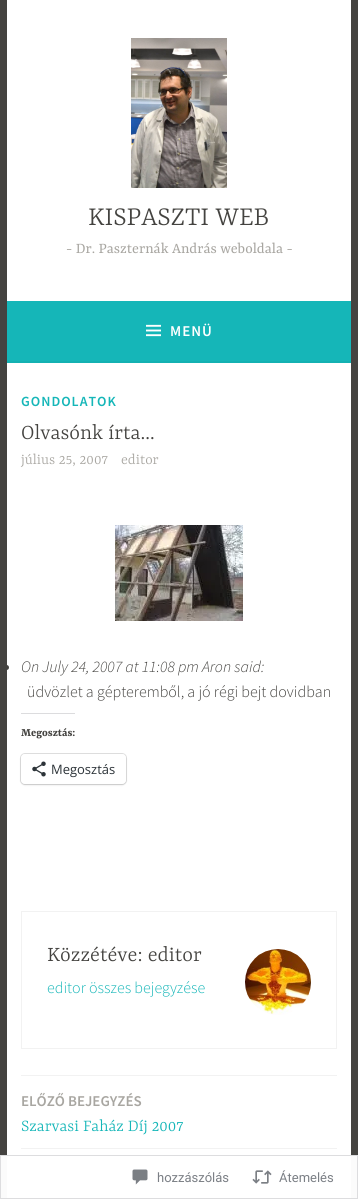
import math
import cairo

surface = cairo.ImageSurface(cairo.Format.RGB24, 358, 1199)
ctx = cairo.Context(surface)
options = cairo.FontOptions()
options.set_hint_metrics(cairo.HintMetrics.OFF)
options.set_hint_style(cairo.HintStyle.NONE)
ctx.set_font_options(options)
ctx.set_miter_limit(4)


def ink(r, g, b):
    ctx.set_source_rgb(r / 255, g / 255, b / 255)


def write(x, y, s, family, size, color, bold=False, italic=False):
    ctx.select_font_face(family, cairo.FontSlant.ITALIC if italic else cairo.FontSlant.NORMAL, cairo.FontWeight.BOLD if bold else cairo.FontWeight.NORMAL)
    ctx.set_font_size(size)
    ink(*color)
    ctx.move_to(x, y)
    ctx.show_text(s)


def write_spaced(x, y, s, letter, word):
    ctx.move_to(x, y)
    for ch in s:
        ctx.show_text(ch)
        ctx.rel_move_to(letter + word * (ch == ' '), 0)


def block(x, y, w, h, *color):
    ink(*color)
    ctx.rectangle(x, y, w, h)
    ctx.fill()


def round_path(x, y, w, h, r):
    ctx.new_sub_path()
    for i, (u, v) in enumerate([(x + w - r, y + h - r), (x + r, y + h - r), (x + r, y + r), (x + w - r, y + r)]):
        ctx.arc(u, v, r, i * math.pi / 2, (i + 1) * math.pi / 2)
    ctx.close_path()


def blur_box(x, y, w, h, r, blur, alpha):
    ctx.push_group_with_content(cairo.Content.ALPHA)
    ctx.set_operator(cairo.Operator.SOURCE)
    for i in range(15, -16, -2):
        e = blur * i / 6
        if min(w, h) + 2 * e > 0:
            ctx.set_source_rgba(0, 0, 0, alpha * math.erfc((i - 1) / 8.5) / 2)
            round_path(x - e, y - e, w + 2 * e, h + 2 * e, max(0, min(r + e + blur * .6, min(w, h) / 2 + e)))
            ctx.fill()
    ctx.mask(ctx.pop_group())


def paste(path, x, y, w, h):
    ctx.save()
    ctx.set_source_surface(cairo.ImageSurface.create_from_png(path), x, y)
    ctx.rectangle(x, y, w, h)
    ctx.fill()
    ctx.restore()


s1 = dict(family="Yrsa Light", size=29, color=(68, 67, 64))
s2 = dict(family="Yrsa", size=16, color=(168, 166, 161))
s3 = dict(family="Yrsa Light", size=23, color=(68, 67, 64))
s4 = dict(family="Yrsa Light", size=16, color=(168, 166, 161))
s5 = dict(family="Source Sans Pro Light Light", size=16, color=(68, 67, 64), italic=True)
s6 = dict(family="Source Sans Pro Light Light", size=16, color=(68, 67, 64))
s7 = dict(family="Yrsa", size=12, color=(68, 67, 64), bold=True)
s8 = dict(family="Open Sans", size=13, color=(44, 51, 56))
s9 = dict(family="Source Sans Pro Light Light", size=16, color=(21, 182, 184))
s10 = dict(family="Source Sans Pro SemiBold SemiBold", size=15, color=(168, 166, 161))
s11 = dict(family="Yrsa Light", size=18, color=(21, 182, 184))
s12 = dict(family="Roboto", size=13, color=(123, 127, 133))

ink(68, 67, 64)
ctx.paint()
block(0, 1155, 358, 44, 251, 251, 251)
block(7, 0, 344, 301, 255, 255, 255)
paste("pic1.png", 131, 38, 96, 150)
write(88, 225, "KISPASZTI WEB", **s1)
write(66, 253, "- Dr. Paszternák András weboldala -", **s2)
block(7, 301, 344, 60, 21, 182, 184)
block(7, 361, 344, 2, 20, 177, 178)
paste("pic2.png", 146, 324, 15, 13)
ctx.select_font_face("Source Sans Pro SemiBold SemiBold")
ctx.set_font_size(15)
ink(255, 255, 255)
write_spaced(170, 336, "MENÜ", 1, 0)
block(7, 363, 344, 836, 255, 255, 255)
ctx.set_font_size(14)
ink(21, 182, 184)
write_spaced(21, 406, "GONDOLATOK", 1, 0)
write(21, 439, "Olvasónk írta…", **s3)
write(21, 464, "július 25, 2007", **s4)
write(121, 464, "editor", **s4)
paste("pic3.png", 115, 525, 128, 96)
ink(68, 67, 64)
ctx.arc(6.5, 667.5, 2.5, 0, 2 * math.pi)
ctx.fill()
write(21, 672, "On July 24, 2007 at 11:08 pm Aron said:", **s5)
write(27, 697, "üdvözlet a gépteremből, a jó régi bejt dovidban", **s6)
block(21, 713, 54, 1, 220, 220, 222)
write(21, 736, "Megosztás:", **s7)
round_path(20.5, 753.5, 106, 31, 4.5)
ink(224, 224, 224)
ctx.set_line_width(1)
ctx.stroke()
ink(0, 0, 0)
blur_box(21, 755, 105, 30, 4, 1, 0.12)
ink(255, 255, 255)
round_path(21, 754, 105, 30, 4)
ctx.fill()
paste("pic4.png", 32, 761, 14, 16)
write(51, 774, "Megosztás", **s8)
ctx.rectangle(21.5, 911.5, 315, 137)
ink(242, 242, 242)
ctx.stroke()
write(47, 961, "Közzétéve: editor", **s3)
paste("pic5.png", 245, 949, 66, 66)
write(47, 993, "editor összes bejegyzése", **s9)
block(21, 1075, 316, 1, 242, 242, 242)
write(21, 1106, "ELŐZŐ BEJEGYZÉS", **s10)
write(21, 1131, "Szarvasi Faház Díj 2007", **s11)
block(21, 1148, 316, 1, 242, 242, 242)
ctx.rectangle(0.5, 1155.5, 357, 43)
ctx.set_source_rgba(0.863, 0.863, 0.871, 0.98)
ctx.stroke()
paste("pic6.png", 132, 1169, 16, 16)
write(157, 1182, "hozzászólás", **s12)
paste("pic7.png", 252, 1170, 20, 14)
write(279, 1182, "Átemelés", **s12)
surface.write_to_png("screenshot.png")
